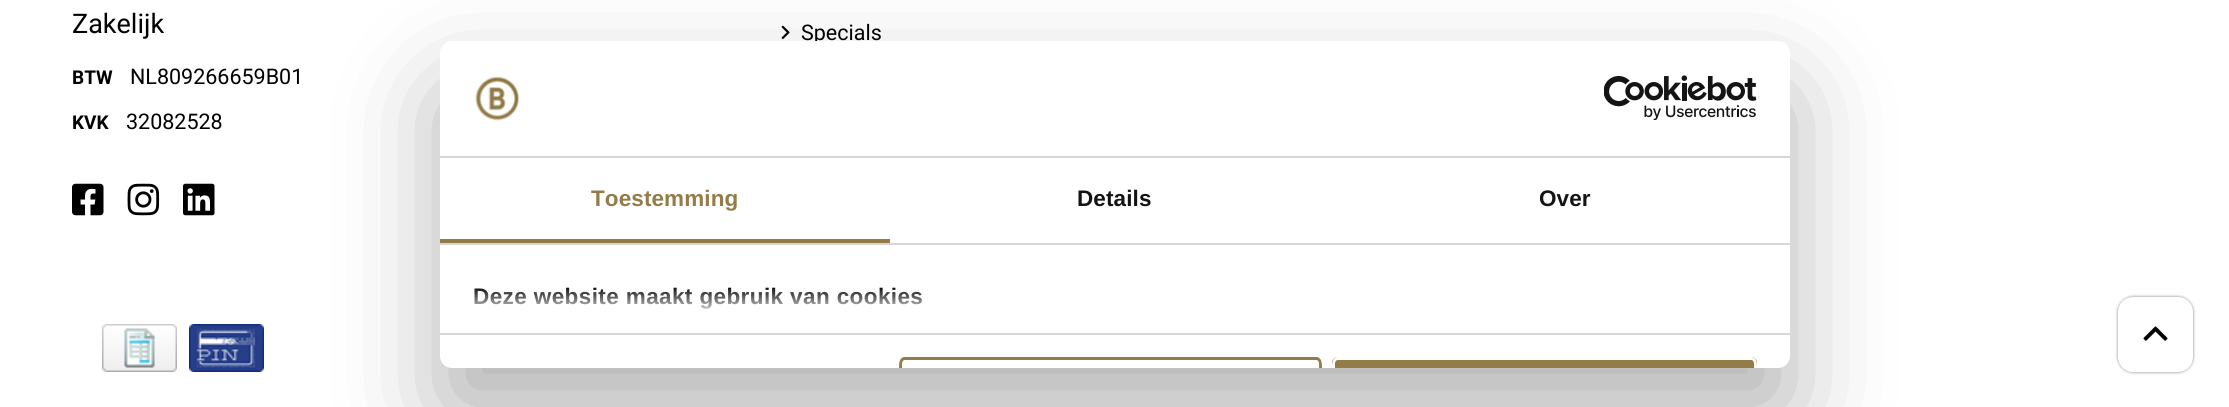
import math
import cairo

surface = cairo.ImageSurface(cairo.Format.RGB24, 2229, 407)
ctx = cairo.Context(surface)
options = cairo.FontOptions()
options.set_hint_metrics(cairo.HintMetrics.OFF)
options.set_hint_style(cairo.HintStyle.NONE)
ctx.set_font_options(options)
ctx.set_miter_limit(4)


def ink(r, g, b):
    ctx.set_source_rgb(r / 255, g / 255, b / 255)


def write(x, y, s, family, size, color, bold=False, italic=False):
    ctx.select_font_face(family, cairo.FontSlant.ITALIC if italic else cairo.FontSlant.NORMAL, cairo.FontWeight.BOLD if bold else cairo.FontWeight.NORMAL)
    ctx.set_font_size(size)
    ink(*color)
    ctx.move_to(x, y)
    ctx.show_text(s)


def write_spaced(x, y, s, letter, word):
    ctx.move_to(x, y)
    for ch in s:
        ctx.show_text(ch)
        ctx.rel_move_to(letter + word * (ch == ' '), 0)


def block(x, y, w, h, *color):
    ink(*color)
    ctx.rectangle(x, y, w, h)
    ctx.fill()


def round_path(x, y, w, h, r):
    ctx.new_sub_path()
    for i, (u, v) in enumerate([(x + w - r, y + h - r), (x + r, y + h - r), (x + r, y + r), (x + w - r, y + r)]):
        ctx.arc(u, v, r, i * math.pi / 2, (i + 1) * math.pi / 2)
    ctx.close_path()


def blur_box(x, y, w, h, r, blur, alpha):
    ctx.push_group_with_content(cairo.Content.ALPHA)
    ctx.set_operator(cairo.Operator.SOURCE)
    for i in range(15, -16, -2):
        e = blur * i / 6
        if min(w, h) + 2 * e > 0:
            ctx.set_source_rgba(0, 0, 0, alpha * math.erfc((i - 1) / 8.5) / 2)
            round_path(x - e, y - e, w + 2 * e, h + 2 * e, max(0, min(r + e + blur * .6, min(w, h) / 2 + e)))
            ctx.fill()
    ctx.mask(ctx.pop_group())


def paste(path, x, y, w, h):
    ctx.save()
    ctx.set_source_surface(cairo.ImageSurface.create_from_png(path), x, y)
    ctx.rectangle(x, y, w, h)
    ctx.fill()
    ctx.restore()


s1 = dict(family="Roboto", size=27, color=(0, 0, 0))
s2 = dict(family="Roboto", size=19, color=(0, 0, 0), bold=True)
s3 = dict(family="Roboto", size=21.5, color=(0, 0, 0))

ink(255, 255, 255)
ctx.paint()
write(72, 33, "Zakelijk", **s1)
write(72, 84, "BTW", **s2)
write(130, 84, "NL809266659B01", **s3)
write(72, 129, "KVK", **s2)
write(126, 129, "32082528", **s3)
paste("pic1.png", 72, 183, 32, 33)
paste("pic2.png", 127, 183, 33, 33)
paste("pic3.png", 183, 183, 32, 33)
paste("pic4.png", 781, 25, 9, 15)
write(801, 40, "Specials", **s3)
paste("pic5.png", 102, 324, 75, 48)
paste("pic6.png", 189, 324, 75, 48)
ink(0, 0, 0)
blur_box(2118, 297, 75, 75, 15, 1.5, 0.5)
ink(255, 255, 255)
round_path(2118, 297, 75, 75, 15)
ctx.fill()
paste("pic7.png", 2143, 326, 25, 15)
ink(0, 0, 0)
blur_box(440, 89, 1350, 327, 12, 51, 0.3)
ink(255, 255, 255)
round_path(440, 41, 1350, 327, 12)
ctx.fill()
block(440, 156, 1350, 2, 214, 214, 214)
paste("pic8.png", 475, 76, 44, 45)
paste("pic9.png", 1604, 75, 153, 45)
block(440, 243, 1350, 2, 214, 214, 214)
block(440, 239, 450, 4, 147, 124, 72)
ctx.select_font_face("Liberation Sans", cairo.FontSlant.NORMAL, cairo.FontWeight.BOLD)
ctx.set_font_size(22.5)
write_spaced(591, 206, "Toestemming", 0.1, 0)
ink(20, 20, 20)
write_spaced(1077, 206, "Details", 0.1, 0)
write_spaced(1539, 206, "Over", 0.1, 0)
block(440, 333, 1350, 2, 214, 214, 214)
ink(20, 20, 20)
write_spaced(473, 304, "Deze website maakt gebruik van cookies", 0.4, 0)
gradient = cairo.LinearGradient(1100, 333, 1100, 288)
gradient.add_color_stop_rgba(0, 1, 1, 1, 1)
gradient.add_color_stop_rgba(0.5, 1, 1, 1, 0.8)
gradient.add_color_stop_rgba(1, 1, 1, 1, 0)
ctx.set_source(gradient)
ctx.rectangle(474, 289, 448, 20)
ctx.fill()
ink(147, 124, 72)
ctx.new_path()
ctx.move_to(905, 357)
ctx.curve_to(899, 357, 899, 364, 899, 368)
ctx.line_to(902, 368)
ctx.curve_to(902, 366, 901, 360, 905, 360)
ctx.line_to(1316, 360)
ctx.curve_to(1320, 360, 1319, 366, 1319, 368)
ctx.line_to(1322, 368)
ctx.curve_to(1322, 364, 1322, 357, 1316, 357)
ctx.close_path()
ctx.fill()
ctx.new_path()
ctx.move_to(1338, 357)
ctx.line_to(1751, 357)
ctx.curve_to(1754.5, 357, 1757, 359.5, 1757, 363)
ctx.line_to(1757, 368)
ctx.line_to(1332, 368)
ctx.line_to(1332, 363)
ctx.curve_to(1332, 359.5, 1334.5, 357, 1338, 357)
ctx.close_path()
ctx.fill()
ink(255, 255, 255)
ctx.new_path()
ctx.move_to(1338, 357)
ctx.curve_to(1332, 357, 1332, 364, 1332, 368)
ctx.line_to(1335, 368)
ctx.curve_to(1335, 366, 1334, 360, 1338, 360)
ctx.line_to(1751, 360)
ctx.curve_to(1755, 360, 1754, 366, 1754, 368)
ctx.line_to(1757, 368)
ctx.curve_to(1757, 364, 1757, 357, 1751, 357)
ctx.close_path()
ctx.fill()
surface.write_to_png("screenshot.png")
